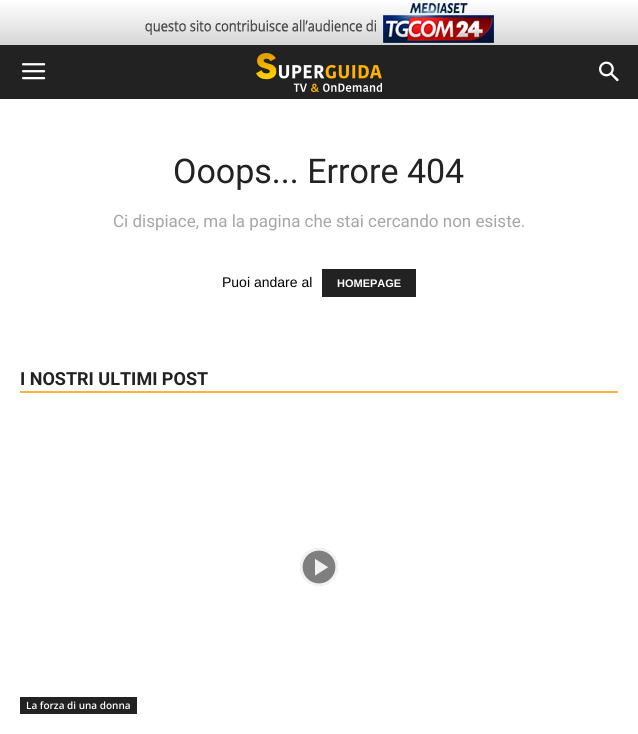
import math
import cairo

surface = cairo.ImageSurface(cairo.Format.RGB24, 638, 734)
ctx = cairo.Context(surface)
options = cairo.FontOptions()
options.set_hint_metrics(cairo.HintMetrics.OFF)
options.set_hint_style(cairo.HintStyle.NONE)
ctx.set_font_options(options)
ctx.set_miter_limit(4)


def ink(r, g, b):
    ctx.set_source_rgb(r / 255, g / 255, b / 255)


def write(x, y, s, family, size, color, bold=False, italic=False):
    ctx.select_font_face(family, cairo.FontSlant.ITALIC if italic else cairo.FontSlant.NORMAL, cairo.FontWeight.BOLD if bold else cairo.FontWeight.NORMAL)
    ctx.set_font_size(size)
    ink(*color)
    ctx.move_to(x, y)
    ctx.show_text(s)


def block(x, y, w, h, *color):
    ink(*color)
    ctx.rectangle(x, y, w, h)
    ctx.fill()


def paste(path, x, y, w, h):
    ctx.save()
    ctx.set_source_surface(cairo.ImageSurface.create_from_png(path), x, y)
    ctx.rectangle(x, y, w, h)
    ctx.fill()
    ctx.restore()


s1 = dict(family="Roboto", size=34, color=(34, 34, 34))
s2 = dict(family="Roboto", size=17, color=(166, 166, 166))
s3 = dict(family="Liberation Sans", size=14, color=(0, 0, 0))
s4 = dict(family="Liberation Sans", size=11, color=(255, 255, 255), bold=True)
s5 = dict(family="Roboto", size=18, color=(34, 34, 34), bold=True)
s6 = dict(family="Open Sans SemiBold", size=10, color=(255, 255, 255))

ink(255, 255, 255)
ctx.paint()
gradient = cairo.LinearGradient(319, 0, 319, 45)
gradient.add_color_stop_rgba(0, 1, 1, 1, 1)
gradient.add_color_stop_rgba(1, 0.839, 0.839, 0.839, 1)
ctx.set_source(gradient)
ctx.rectangle(0, 3, 638, 42)
ctx.fill()
paste("pic1.png", 145, 3, 349, 40)
block(0, 45, 638, 54, 34, 34, 34)
paste("pic2.png", 22, 63, 24, 17)
paste("pic3.png", 256, 53, 126, 39)
paste("pic4.png", 599, 61, 20, 21)
write(173, 183, "Ooops... Errore 404", **s1)
write(113, 227, "Ci dispiace, ma la pagina che stai cercando non esiste.", **s2)
write(222, 287, "Puoi andare al", **s3)
block(322, 269, 94, 28, 34, 34, 34)
write(337, 287, "HOMEPAGE", **s4)
block(20, 391, 598, 2, 251, 179, 58)
write(20, 385, "I NOSTRI ULTIMI POST", **s5)
paste("pic5.png", 300, 548, 38, 38)
block(20, 697, 117, 17, 34, 34, 34)
write(26, 709, "La forza di una donna", **s6)
surface.write_to_png("screenshot.png")
